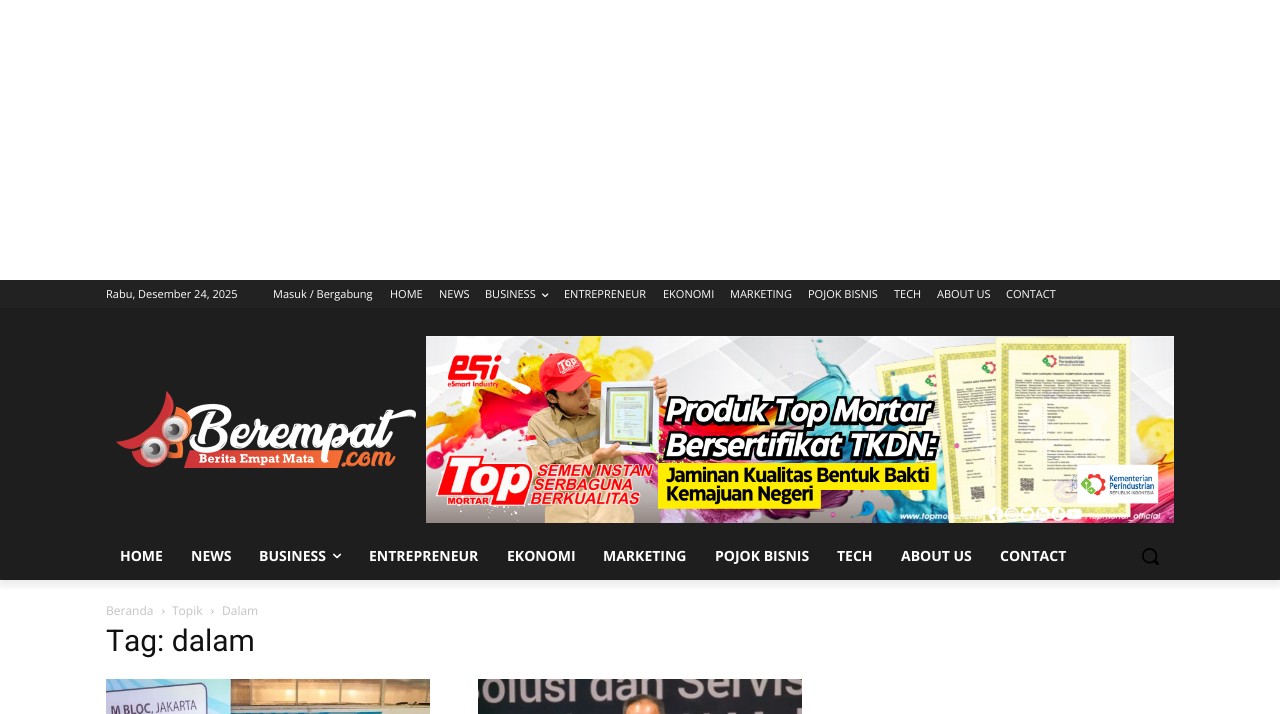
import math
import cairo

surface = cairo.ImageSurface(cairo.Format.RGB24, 1280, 714)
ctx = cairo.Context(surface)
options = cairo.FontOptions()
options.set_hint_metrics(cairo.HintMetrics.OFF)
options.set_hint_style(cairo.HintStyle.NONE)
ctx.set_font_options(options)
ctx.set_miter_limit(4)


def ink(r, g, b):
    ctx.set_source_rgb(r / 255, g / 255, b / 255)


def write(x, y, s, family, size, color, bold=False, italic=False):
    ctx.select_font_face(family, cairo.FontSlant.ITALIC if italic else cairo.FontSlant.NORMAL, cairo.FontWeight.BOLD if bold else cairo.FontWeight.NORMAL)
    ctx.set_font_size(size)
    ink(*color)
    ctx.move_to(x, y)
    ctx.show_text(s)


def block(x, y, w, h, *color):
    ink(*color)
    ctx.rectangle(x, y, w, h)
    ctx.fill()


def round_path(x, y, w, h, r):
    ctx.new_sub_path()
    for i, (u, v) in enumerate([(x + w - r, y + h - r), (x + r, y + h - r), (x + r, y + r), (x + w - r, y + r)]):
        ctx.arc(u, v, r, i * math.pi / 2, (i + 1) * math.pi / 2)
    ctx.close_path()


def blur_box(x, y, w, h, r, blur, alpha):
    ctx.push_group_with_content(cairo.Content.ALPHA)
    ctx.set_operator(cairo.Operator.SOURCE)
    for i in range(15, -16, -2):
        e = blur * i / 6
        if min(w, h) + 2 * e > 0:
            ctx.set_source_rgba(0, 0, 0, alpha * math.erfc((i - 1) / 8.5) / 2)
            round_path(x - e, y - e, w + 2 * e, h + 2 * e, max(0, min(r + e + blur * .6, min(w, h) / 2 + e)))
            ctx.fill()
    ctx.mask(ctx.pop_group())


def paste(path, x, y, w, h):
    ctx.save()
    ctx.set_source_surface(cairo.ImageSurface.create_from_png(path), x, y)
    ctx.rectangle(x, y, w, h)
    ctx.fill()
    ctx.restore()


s1 = dict(family="Open Sans", size=11, color=(255, 255, 255))
s2 = dict(family="Open Sans", size=14, color=(255, 255, 255), bold=True)
s3 = dict(family="Open Sans", size=12, color=(195, 195, 195))
s4 = dict(family="Roboto", size=30, color=(17, 17, 17))

ink(255, 255, 255)
ctx.paint()
block(0, 280, 1280, 28, 34, 34, 34)
block(0, 308, 1280, 272, 30, 30, 30)
paste("pic2.png", 116, 391, 300, 77)
paste("pic3.png", 426, 336, 748, 187)
ctx.save()
ctx.rectangle(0, 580, 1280, 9)
ctx.clip()
ink(0, 0, 0)
blur_box(0, 286, 1280, 300, 0, 4, 0.08)
ctx.restore()
write(106, 298, "Rabu, Desember 24, 2025", **s1)
write(273, 298, "Masuk / Bergabung", **s1)
write(390, 298, "HOME", **s1)
write(439, 298, "NEWS", **s1)
write(485, 298, "BUSINESS", **s1)
paste("pic1.png", 542, 293, 7, 5)
write(564, 298, "ENTREPRENEUR", **s1)
write(663, 298, "EKONOMI", **s1)
write(730, 298, "MARKETING", **s1)
write(808, 298, "POJOK BISNIS", **s1)
write(894, 298, "TECH", **s1)
write(937, 298, "ABOUT US", **s1)
write(1006, 298, "CONTACT", **s1)
write(120, 561, "HOME", **s2)
write(191, 561, "NEWS", **s2)
write(259, 561, "BUSINESS", **s2)
paste("pic4.png", 333, 553, 9, 6)
write(369, 561, "ENTREPRENEUR", **s2)
write(507, 561, "EKONOMI", **s2)
write(603, 561, "MARKETING", **s2)
write(715, 561, "POJOK BISNIS", **s2)
write(837, 561, "TECH", **s2)
write(901, 561, "ABOUT US", **s2)
write(1000, 561, "CONTACT", **s2)
paste("pic5.png", 1142, 548, 17, 17)
write(106, 615, "Beranda", **s3)
paste("pic6.png", 162, 609, 3, 5)
write(172, 615, "Topik", **s3)
paste("pic6.png", 211, 609, 3, 5)
write(222, 615, "Dalam", **s3)
write(106, 651, "Tag: dalam", **s4)
paste("pic7.png", 106, 679, 324, 35)
paste("pic8.png", 478, 679, 324, 35)
surface.write_to_png("screenshot.png")
